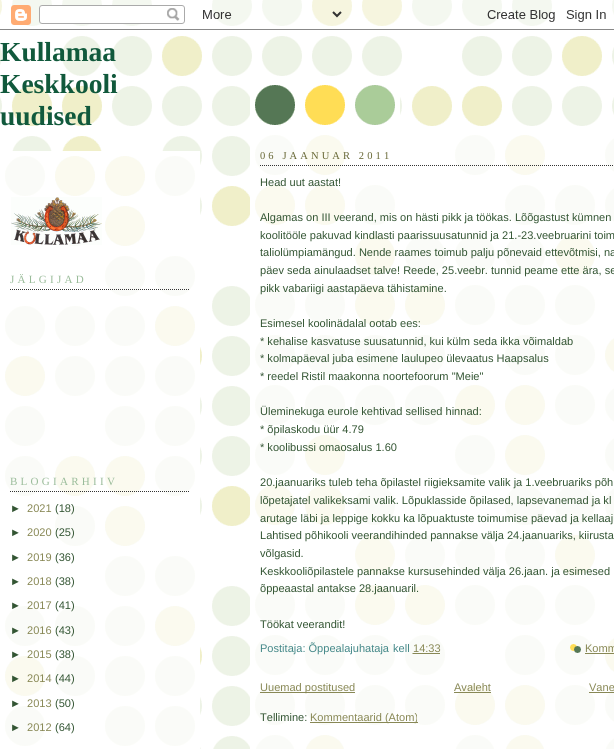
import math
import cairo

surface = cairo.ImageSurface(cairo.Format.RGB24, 614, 749)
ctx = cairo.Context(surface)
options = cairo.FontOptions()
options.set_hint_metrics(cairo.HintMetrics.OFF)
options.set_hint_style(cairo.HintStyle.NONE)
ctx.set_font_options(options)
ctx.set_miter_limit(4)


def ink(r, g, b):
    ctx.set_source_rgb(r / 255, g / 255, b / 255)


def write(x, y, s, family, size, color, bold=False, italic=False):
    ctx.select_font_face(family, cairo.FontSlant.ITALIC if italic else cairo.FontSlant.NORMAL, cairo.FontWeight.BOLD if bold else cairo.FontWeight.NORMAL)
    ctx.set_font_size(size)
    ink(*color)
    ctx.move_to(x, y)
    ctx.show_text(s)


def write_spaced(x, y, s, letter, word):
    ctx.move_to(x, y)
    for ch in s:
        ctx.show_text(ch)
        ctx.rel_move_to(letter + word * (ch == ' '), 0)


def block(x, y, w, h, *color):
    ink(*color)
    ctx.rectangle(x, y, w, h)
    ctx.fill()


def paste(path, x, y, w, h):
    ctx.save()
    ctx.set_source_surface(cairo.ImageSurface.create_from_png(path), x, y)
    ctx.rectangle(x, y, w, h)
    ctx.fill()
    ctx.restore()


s1 = dict(family="Liberation Serif", size=27.5, color=(17, 89, 60), bold=True)
s2 = dict(family="Liberation Sans", size=11.05, color=(51, 85, 51))
s3 = dict(family="Liberation Sans", size=11.05, color=(136, 136, 85))
s4 = dict(family="Liberation Sans", size=11.05, color=(68, 136, 136))

ink(255, 255, 255)
ctx.paint()
paste("pic1.png", 0, 0, 614, 749)
paste("pic2.png", 0, 0, 614, 30)
paste("pic3.png", 250, 85, 150, 41)
write(0, 61, "Kullamaa", **s1)
write(0, 93, "Keskkooli", **s1)
write(0, 125, "uudised", **s1)
paste("pic4.png", 0, 151, 200, 598)
paste("pic5.png", 11, 197, 91, 48)
ctx.new_path()
ctx.move_to(10, 289.5)
ctx.line_to(190, 289.5)
ink(51, 51, 51)
ctx.set_line_width(1)
ctx.set_dash([1, 1])
ctx.stroke()
ctx.select_font_face("Liberation Serif")
ctx.set_font_size(11.05)
ink(153, 187, 153)
write_spaced(10, 283, "JÄLGIJAD", 3.25, 0)
ctx.new_path()
ctx.move_to(10, 491.5)
ctx.line_to(190, 491.5)
ink(51, 51, 51)
ctx.stroke()
ink(153, 187, 153)
write_spaced(10, 485, "BLOGIARHIIV", 3.25, 0)
write(10, 512, "►", **s2)
write(27, 512, "2021", **s3)
write(55, 512, "(18)", **s2)
write(10, 536, "►", **s2)
write(27, 536, "2020", **s3)
write(55, 536, "(25)", **s2)
write(10, 561, "►", **s2)
write(27, 561, "2019", **s3)
write(55, 561, "(36)", **s2)
write(10, 585, "►", **s2)
write(27, 585, "2018", **s3)
write(55, 585, "(38)", **s2)
write(10, 609, "►", **s2)
write(27, 609, "2017", **s3)
write(55, 609, "(41)", **s2)
write(10, 634, "►", **s2)
write(27, 634, "2016", **s3)
write(55, 634, "(43)", **s2)
write(10, 658, "►", **s2)
write(27, 658, "2015", **s3)
write(55, 658, "(38)", **s2)
write(10, 682, "►", **s2)
write(27, 682, "2014", **s3)
write(55, 682, "(44)", **s2)
write(10, 707, "►", **s2)
write(27, 707, "2013", **s3)
write(55, 707, "(50)", **s2)
write(10, 731, "►", **s2)
write(27, 731, "2012", **s3)
write(55, 731, "(64)", **s2)
paste("pic6.png", 250, 135, 364, 614)
ctx.new_path()
ctx.move_to(260, 165.5)
ctx.line_to(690, 165.5)
ink(51, 51, 51)
ctx.stroke()
ctx.select_font_face("Liberation Serif")
ctx.set_font_size(10.5)
ink(102, 102, 51)
write_spaced(260, 159, "06 JAANUAR 2011", 3.1, 0)
write(260, 186, "Head uut aastat!", **s2)
write(260, 221, "Algamas on III veerand, mis on hästi pikk ja töökas. Lõõgastust kümnen", **s2)
write(260, 239, "koolitööle pakuvad kindlasti paarissuusatunnid ja 21.-23.veebruarini toim", **s2)
write(260, 256, "taliolümpiamängud. Nende raames toimub palju põnevaid ettevõtmisi, na", **s2)
write(260, 274, "päev seda ainulaadset talve! Reede, 25.veebr. tunnid peame ette ära, se", **s2)
write(260, 292, "pikk vabariigi aastapäeva tähistamine.", **s2)
write(260, 327, "Esimesel koolinädalal ootab ees:", **s2)
write(260, 345, "* kehalise kasvatuse suusatunnid, kui külm seda ikka võimaldab", **s2)
write(260, 362, "* kolmapäeval juba esimene laulupeo ülevaatus Haapsalus", **s2)
write(260, 380, "* reedel Ristil maakonna noortefoorum \"Meie\"", **s2)
write(260, 415, "Üleminekuga eurole kehtivad sellised hinnad:", **s2)
write(260, 433, "* õpilaskodu üür 4.79", **s2)
write(260, 451, "* koolibussi omaosalus 1.60", **s2)
write(260, 486, "20.jaanuariks tuleb teha õpilastel riigieksamite valik ja 1.veebruariks põh", **s2)
write(260, 504, "lõpetajatel valikeksami valik. Lõpuklasside õpilased, lapsevanemad ja kl", **s2)
write(260, 522, "arutage läbi ja leppige kokku ka lõpuaktuste toimumise päevad ja kellaaj", **s2)
write(260, 539, "Lahtised põhikooli veerandihinded pannakse välja 24.jaanuariks, kiirusta", **s2)
write(260, 557, "võlgasid.", **s2)
write(260, 575, "Keskkooliõpilastele pannakse kursusehinded välja 26.jaan. ja esimesed", **s2)
write(260, 592, "õppeaastal antakse 28.jaanuaril.", **s2)
write(260, 628, "Töökat veerandit!", **s2)
write(260, 652, "Postitaja: Õppealajuhataja", **s4)
write(393, 652, "kell", **s4)
write(413, 652, "14:33", **s3)
ctx.new_path()
ctx.move_to(412.5, 653.5)
ctx.line_to(440.5, 653.5)
ctx.stroke()
block(413, 653, 27, 1, 136, 136, 85)
paste("pic7.png", 570, 644, 11, 9)
write(585, 652, "Komm", **s3)
block(585, 653, 29, 1, 136, 136, 85)
block(260, 692, 95, 1, 136, 136, 85)
write(260, 691, "Uuemad postitused", **s3)
write(454, 691, "Avaleht", **s3)
block(454, 692, 37, 1, 136, 136, 85)
write(589, 691, "Vane", **s3)
block(589, 692, 25, 1, 136, 136, 85)
write(260, 721, "Tellimine:", **s2)
block(310, 722, 108, 1, 136, 136, 85)
write(310, 721, "Kommentaarid (Atom)", **s3)
surface.write_to_png("screenshot.png")
